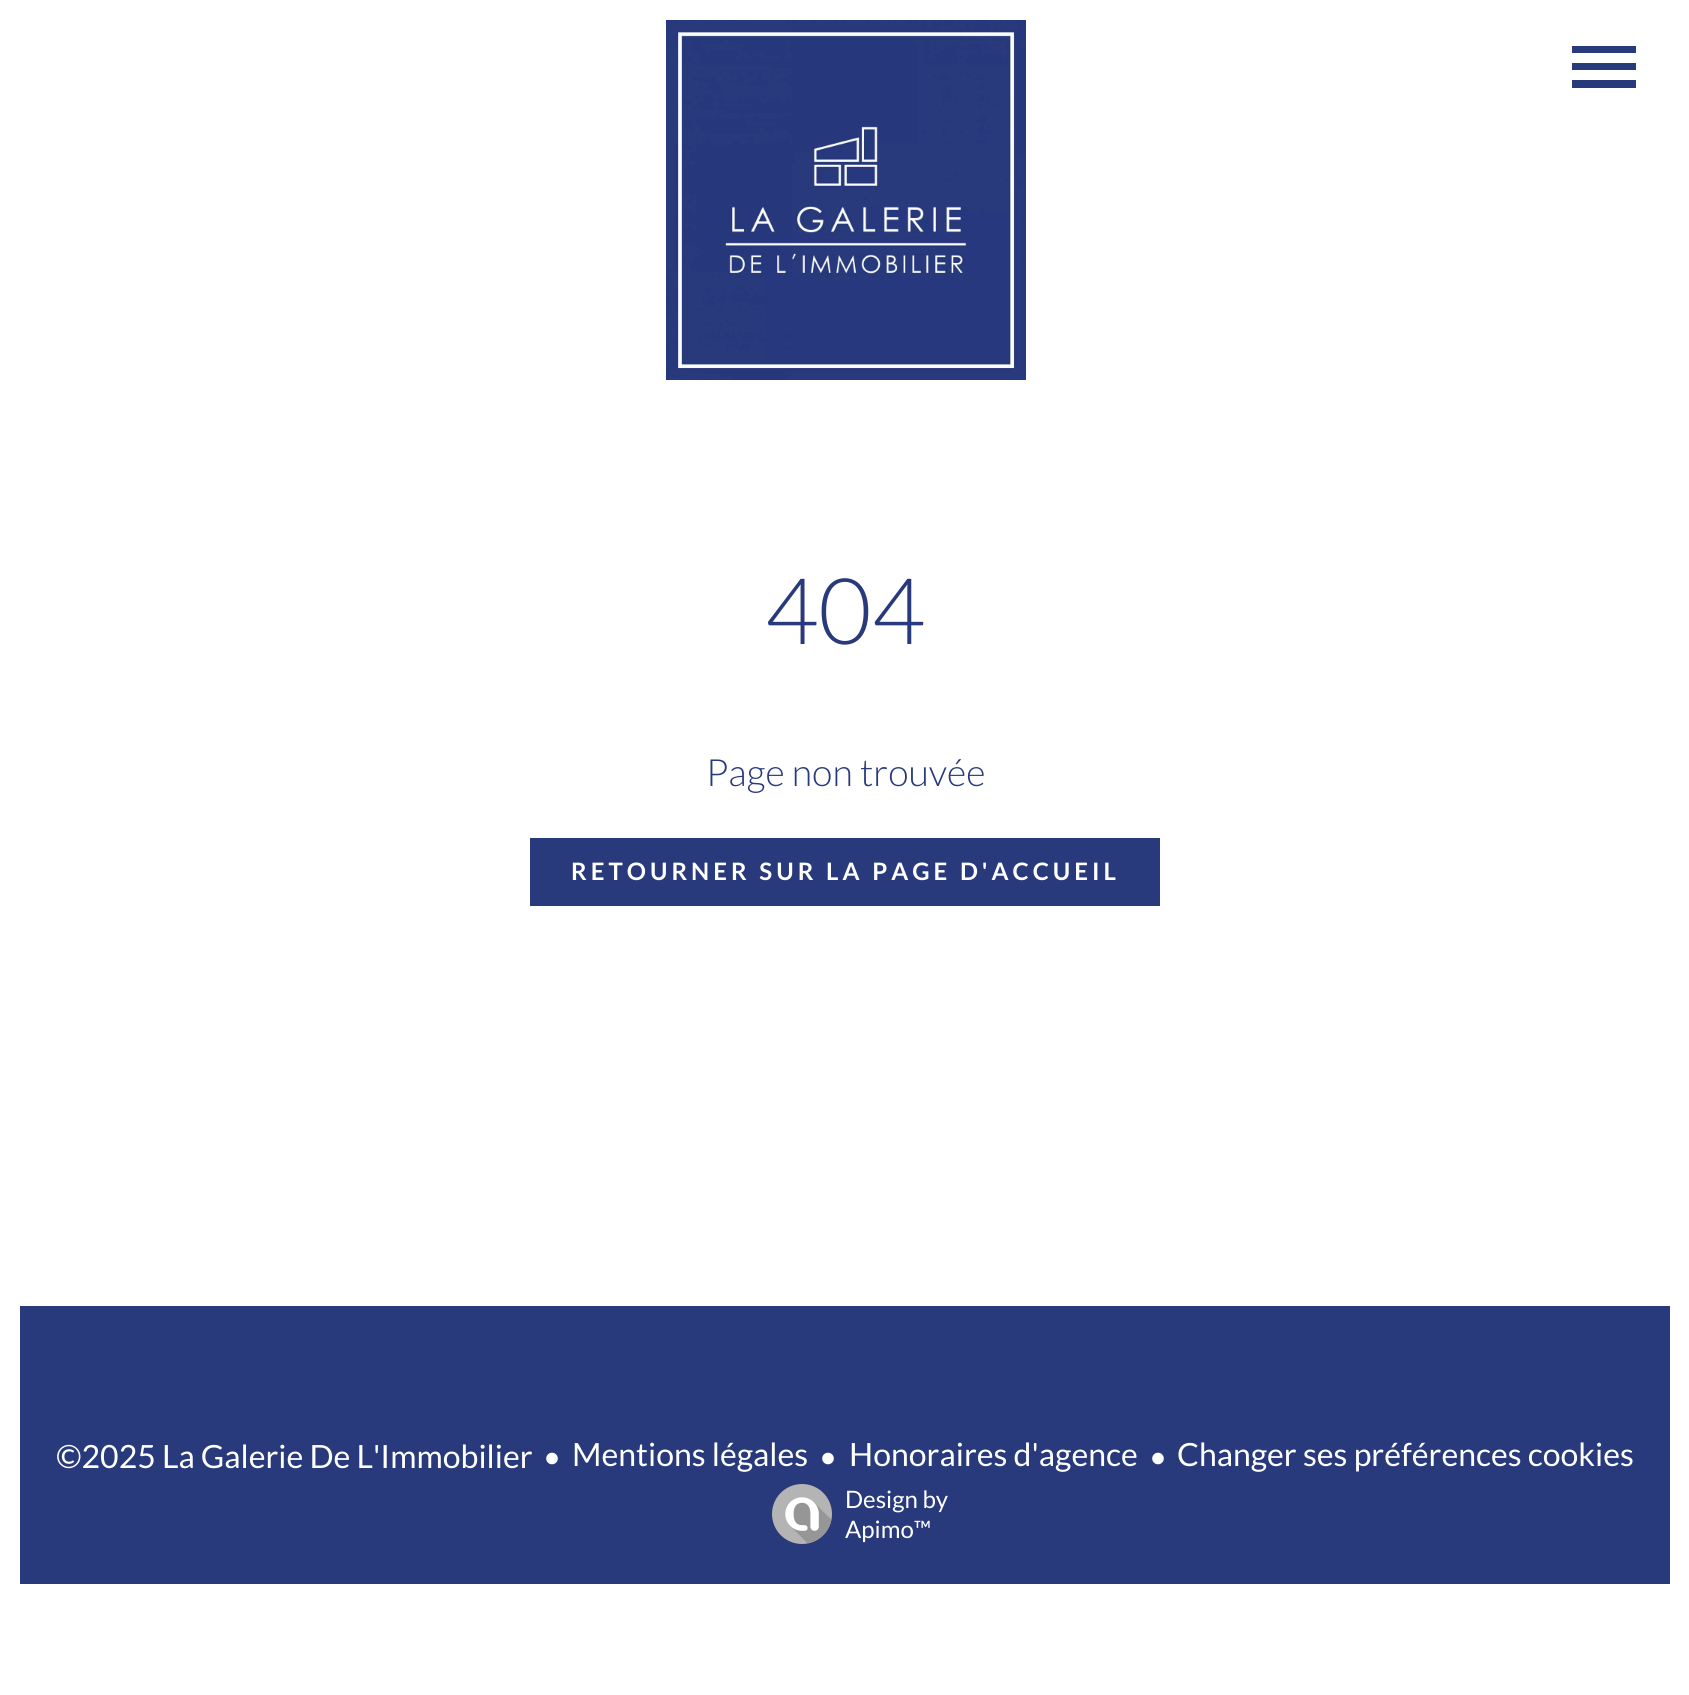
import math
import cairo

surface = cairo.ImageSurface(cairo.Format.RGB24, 1689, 1695)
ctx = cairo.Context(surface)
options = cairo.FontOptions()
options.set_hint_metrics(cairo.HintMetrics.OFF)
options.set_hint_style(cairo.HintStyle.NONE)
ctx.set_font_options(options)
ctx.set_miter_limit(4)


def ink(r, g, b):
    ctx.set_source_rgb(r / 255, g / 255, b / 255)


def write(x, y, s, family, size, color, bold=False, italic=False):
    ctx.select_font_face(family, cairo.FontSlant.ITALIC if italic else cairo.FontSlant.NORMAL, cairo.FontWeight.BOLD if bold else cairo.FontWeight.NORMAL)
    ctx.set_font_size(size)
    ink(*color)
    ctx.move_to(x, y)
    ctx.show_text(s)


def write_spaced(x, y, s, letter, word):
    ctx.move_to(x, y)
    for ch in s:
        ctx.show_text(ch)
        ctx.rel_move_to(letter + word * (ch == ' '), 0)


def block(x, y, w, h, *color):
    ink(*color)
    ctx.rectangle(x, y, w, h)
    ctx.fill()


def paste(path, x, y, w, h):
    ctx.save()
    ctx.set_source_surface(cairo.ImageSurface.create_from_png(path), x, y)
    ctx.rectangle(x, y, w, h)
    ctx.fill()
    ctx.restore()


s1 = dict(family="Lato Light", size=92, color=(40, 57, 124))
s2 = dict(family="Lato Light", size=37.5, color=(40, 57, 124))
s3 = dict(family="Lato", size=32, color=(255, 255, 255))
s4 = dict(family="Lato", size=24, color=(255, 255, 255))

ink(255, 255, 255)
ctx.paint()
paste("pic1.png", 666, 20, 360, 360)
ink(40, 57, 124)
ctx.new_path()
ctx.move_to(1572, 46)
ctx.line_to(1636, 46)
ctx.line_to(1636, 53)
ctx.line_to(1572, 53)
ctx.close_path()
ctx.move_to(1572, 63)
ctx.line_to(1636, 63)
ctx.line_to(1636, 70)
ctx.line_to(1572, 70)
ctx.close_path()
ctx.move_to(1572, 80)
ctx.line_to(1636, 80)
ctx.line_to(1636, 88)
ctx.line_to(1572, 88)
ctx.close_path()
ctx.fill()
write(765, 644, "404", **s1)
write(706, 786, "Page non trouvée", **s2)
block(530, 838, 630, 68, 40, 57, 124)
ctx.select_font_face("Lato", cairo.FontSlant.NORMAL, cairo.FontWeight.BOLD)
ctx.set_font_size(24)
ink(255, 255, 255)
write_spaced(571, 880, "RETOURNER SUR LA PAGE D'ACCUEIL", 4, 0)
block(20, 1306, 1650, 278, 40, 57, 124)
write(56, 1468, "©2025 La Galerie De L'Immobilier", **s3)
paste("pic2.png", 546, 1452, 12, 13)
write(572, 1466, "Mentions légales", **s3)
paste("pic2.png", 822, 1452, 12, 13)
write(849, 1466, "Honoraires d'agence", **s3)
paste("pic2.png", 1152, 1452, 12, 13)
write(1177, 1466, "Changer ses préférences cookies", **s3)
paste("pic3.png", 772, 1484, 60, 60)
write(845, 1508, "Design by", **s4)
write(845, 1538, "Apimo™", **s4)
surface.write_to_png("screenshot.png")
